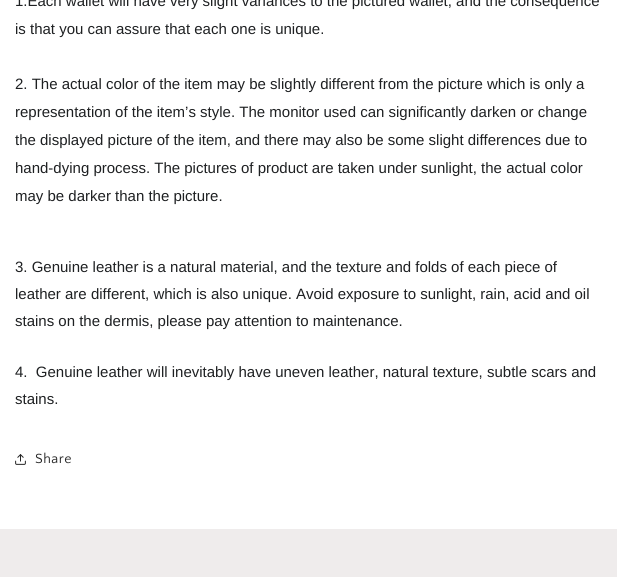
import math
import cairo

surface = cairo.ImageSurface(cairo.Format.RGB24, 617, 577)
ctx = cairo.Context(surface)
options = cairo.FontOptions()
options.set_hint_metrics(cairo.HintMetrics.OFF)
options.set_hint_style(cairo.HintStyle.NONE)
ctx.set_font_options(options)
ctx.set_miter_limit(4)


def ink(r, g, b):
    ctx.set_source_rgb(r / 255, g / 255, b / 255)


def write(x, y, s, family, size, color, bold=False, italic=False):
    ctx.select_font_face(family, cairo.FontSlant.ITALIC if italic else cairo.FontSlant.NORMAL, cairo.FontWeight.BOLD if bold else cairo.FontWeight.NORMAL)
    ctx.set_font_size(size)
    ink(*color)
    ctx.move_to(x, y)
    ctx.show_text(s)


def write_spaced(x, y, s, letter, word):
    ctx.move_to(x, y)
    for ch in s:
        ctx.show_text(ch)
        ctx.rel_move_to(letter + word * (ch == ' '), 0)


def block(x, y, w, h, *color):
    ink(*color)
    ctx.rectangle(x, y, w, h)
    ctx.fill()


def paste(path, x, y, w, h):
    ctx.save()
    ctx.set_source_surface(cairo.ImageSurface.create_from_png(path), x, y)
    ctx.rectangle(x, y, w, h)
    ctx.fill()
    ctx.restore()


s1 = dict(family="Liberation Sans", size=15, color=(30, 32, 34))

ink(239, 236, 236)
ctx.paint()
block(0, 0, 617, 529, 255, 255, 255)
write(15, 6, "1.Each wallet will have very slight variances to the pictured wallet, and the consequence", **s1)
write(15, 34, "is that you can assure that each one is unique.", **s1)
write(15, 89, "2. The actual color of the item may be slightly different from the picture which is only a", **s1)
write(15, 117, "representation of the item’s style. The monitor used can significantly darken or change", **s1)
write(15, 145, "the displayed picture of the item, and there may also be some slight differences due to", **s1)
write(15, 173, "hand-dying process. The pictures of product are taken under sunlight, the actual color", **s1)
write(15, 201, "may be darker than the picture.", **s1)
write(15, 272, "3. Genuine leather is a natural material, and the texture and folds of each piece of", **s1)
write(15, 299, "leather are different, which is also unique. Avoid exposure to sunlight, rain, acid and oil", **s1)
write(15, 326, "stains on the dermis, please pay attention to maintenance.", **s1)
write(15, 377, "4.  Genuine leather will inevitably have uneven leather, natural texture, subtle scars and", **s1)
write(15, 404, "stains.", **s1)
paste("pic1.png", 15, 454, 11, 11)
ctx.select_font_face("Quattrocento Sans")
ctx.set_font_size(14)
ink(37, 37, 37)
write_spaced(35, 463, "Share", 0.5, 0)
surface.write_to_png("screenshot.png")
